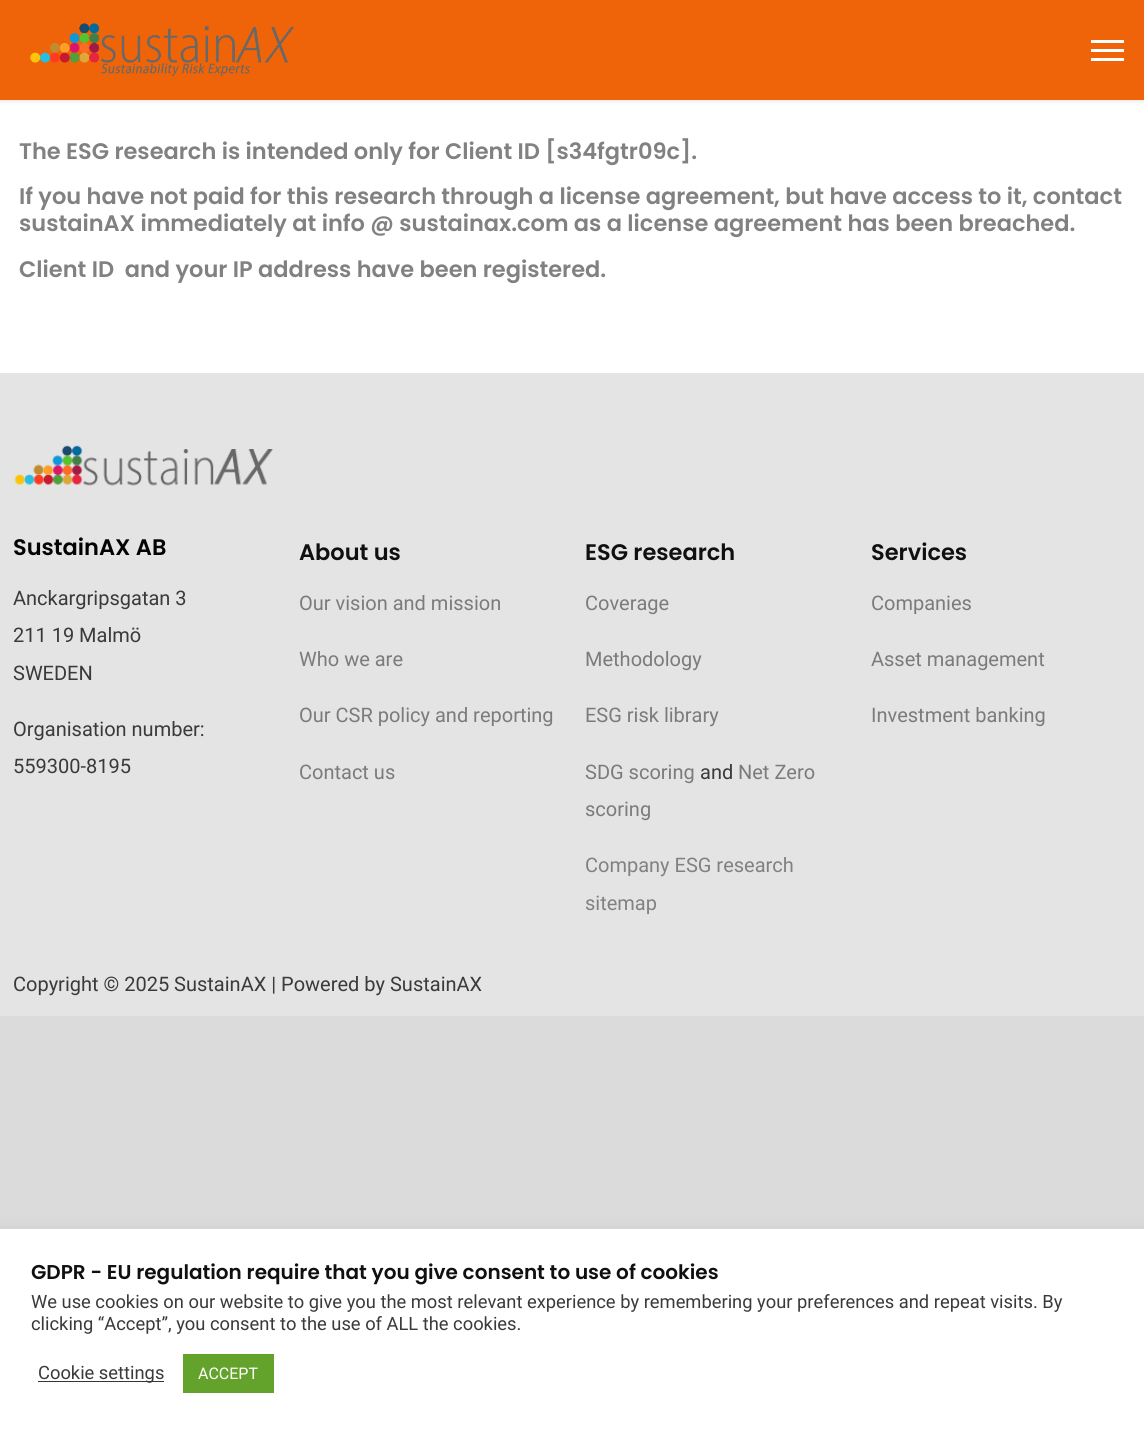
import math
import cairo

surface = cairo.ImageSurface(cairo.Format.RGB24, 1144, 1429)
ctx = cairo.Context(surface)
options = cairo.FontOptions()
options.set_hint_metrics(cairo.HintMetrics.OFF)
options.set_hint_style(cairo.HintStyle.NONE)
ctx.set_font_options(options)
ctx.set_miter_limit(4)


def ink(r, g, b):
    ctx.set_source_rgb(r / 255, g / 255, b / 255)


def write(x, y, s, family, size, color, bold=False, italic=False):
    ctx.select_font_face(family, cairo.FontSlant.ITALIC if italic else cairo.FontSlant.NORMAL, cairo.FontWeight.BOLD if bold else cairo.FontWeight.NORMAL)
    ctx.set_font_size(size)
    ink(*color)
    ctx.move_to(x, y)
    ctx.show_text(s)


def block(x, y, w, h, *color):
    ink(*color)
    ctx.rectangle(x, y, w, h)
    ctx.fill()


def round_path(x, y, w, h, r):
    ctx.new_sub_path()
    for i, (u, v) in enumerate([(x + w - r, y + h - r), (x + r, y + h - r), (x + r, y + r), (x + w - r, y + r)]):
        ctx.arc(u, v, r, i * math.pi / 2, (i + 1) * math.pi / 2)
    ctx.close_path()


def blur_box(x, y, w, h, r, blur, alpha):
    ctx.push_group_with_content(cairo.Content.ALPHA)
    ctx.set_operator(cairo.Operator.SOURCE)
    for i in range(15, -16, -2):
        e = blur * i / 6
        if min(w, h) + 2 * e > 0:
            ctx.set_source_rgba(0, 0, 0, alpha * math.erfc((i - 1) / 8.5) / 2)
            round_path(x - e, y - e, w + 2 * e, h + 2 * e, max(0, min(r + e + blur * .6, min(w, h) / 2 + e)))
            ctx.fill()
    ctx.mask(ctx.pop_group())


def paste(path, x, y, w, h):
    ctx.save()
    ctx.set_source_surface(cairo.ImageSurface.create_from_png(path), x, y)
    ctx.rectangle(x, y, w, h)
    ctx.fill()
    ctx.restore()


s1 = dict(family="Poppins SemiBold", size=22.5, color=(129, 129, 129))
s2 = dict(family="Poppins SemiBold", size=22.5, color=(3, 3, 3))
s3 = dict(family="Roboto", size=20, color=(58, 58, 58))
s4 = dict(family="Poppins SemiBold", size=22.5, color=(16, 16, 16))
s5 = dict(family="Roboto", size=20, color=(123, 123, 123))
s6 = dict(family="Roboto", size=20, color=(129, 129, 129))
s7 = dict(family="Poppins SemiBold", size=20, color=(16, 16, 16))
s8 = dict(family="Roboto", size=18.33, color=(58, 58, 58))
s9 = dict(family="Roboto", size=16, color=(255, 255, 255))

ink(219, 219, 219)
ctx.paint()
block(0, 100, 1144, 273, 255, 255, 255)
ink(3, 3, 3)
blur_box(0, 0, 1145, 100, 0, 3, 0.15)
block(0, 0, 1144, 100, 239, 100, 8)
paste("pic1.png", 30, 23, 264, 54)
block(1091, 40, 33, 3, 255, 255, 255)
block(1091, 49, 33, 3, 255, 255, 255)
block(1091, 58, 33, 3, 255, 255, 255)
write(19, 159, "The ESG research is intended only for Client ID [s34fgtr09c].", **s1)
write(19, 204, "If you have not paid for this research through a license agreement, but have access to it, contact", **s1)
write(19, 231, "sustainAX immediately at info @ sustainax.com as a license agreement has been breached.", **s1)
write(19, 277, "Client ID  and your IP address have been registered.", **s1)
block(0, 373, 1144, 643, 228, 228, 228)
paste("pic2.png", 14, 445, 259, 41)
write(13, 555, "SustainAX AB", **s2)
write(13, 605, "Anckargripsgatan 3", **s3)
write(13, 642, "211 19 Malmö", **s3)
write(13, 680, "SWEDEN", **s3)
write(13, 736, "Organisation number:", **s3)
write(13, 773, "559300-8195", **s3)
write(299, 560, "About us", **s4)
write(299, 610, "Our vision and mission", **s5)
write(299, 666, "Who we are", **s5)
write(299, 722, "Our CSR policy and reporting", **s5)
write(299, 779, "Contact us", **s5)
write(585, 560, "ESG research", **s4)
write(585, 610, "Coverage", **s5)
write(585, 666, "Methodology", **s5)
write(585, 722, "ESG risk library", **s5)
write(585, 779, "SDG scoring", **s5)
write(700, 779, "and", **s3)
write(738, 779, "Net Zero", **s5)
write(585, 816, "scoring", **s5)
write(585, 872, "Company ESG research", **s6)
write(585, 910, "sitemap", **s6)
write(871, 560, "Services", **s4)
write(871, 610, "Companies", **s5)
write(871, 666, "Asset management", **s5)
write(871, 722, "Investment banking", **s5)
write(13, 991, "Copyright © 2025 SustainAX | Powered by SustainAX", **s3)
ink(173, 172, 172)
blur_box(0, 1228, 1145, 201, 0, 6, 0.3)
block(0, 1229, 1144, 200, 255, 255, 255)
write(31, 1279, "GDPR - EU regulation require that you give consent to use of cookies", **s7)
write(31, 1308, "We use cookies on our website to give you the most relevant experience by remembering your preferences and repeat visits. By", **s8)
write(31, 1330, "clicking “Accept”, you consent to the use of ALL the cookies.", **s8)
block(38, 1381, 126, 1, 53, 53, 53)
write(38, 1379, "Cookie settings", **s8)
block(183, 1354, 91, 39, 99, 163, 43)
write(198, 1379, "ACCEPT", **s9)
surface.write_to_png("screenshot.png")
